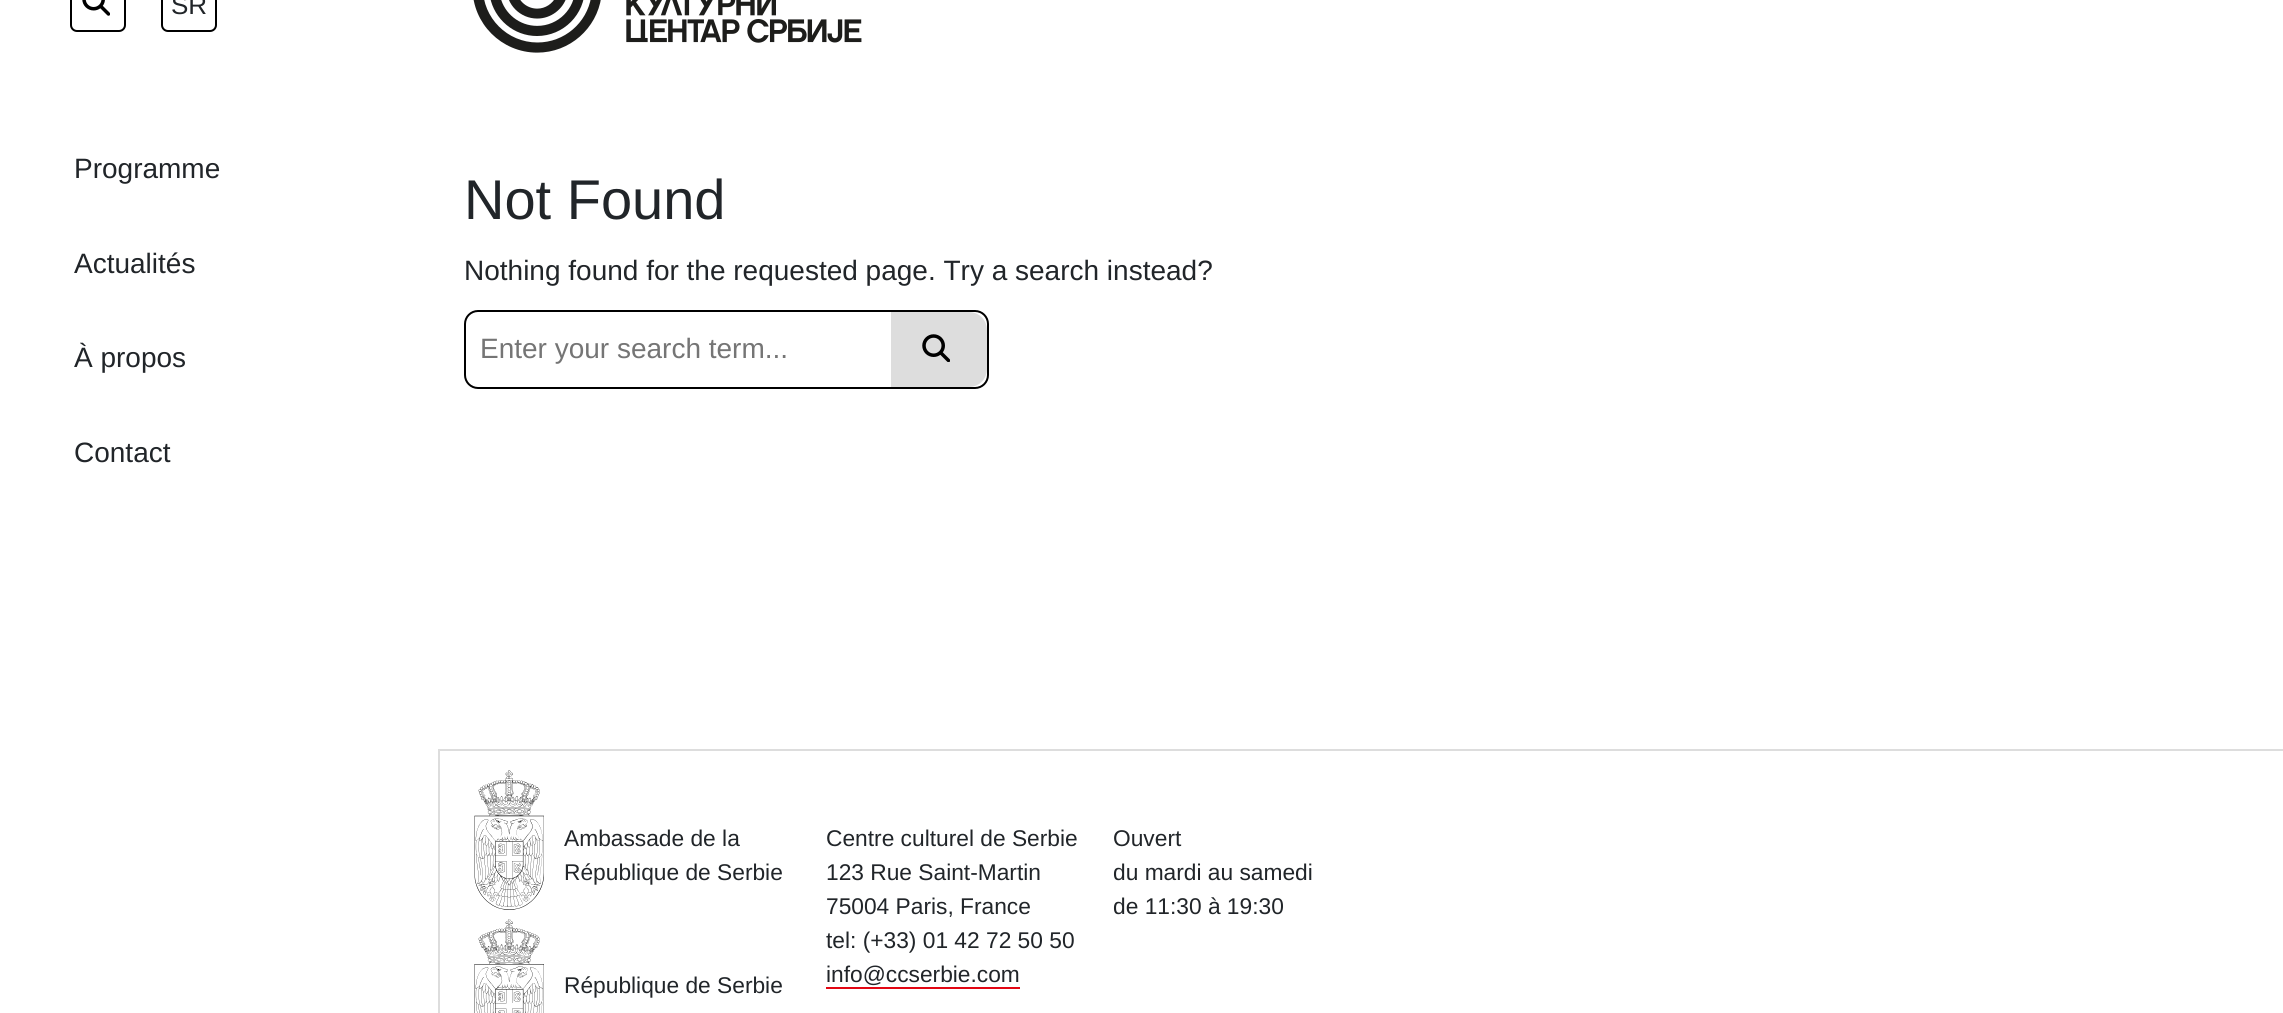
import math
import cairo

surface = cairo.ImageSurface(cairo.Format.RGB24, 2283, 1013)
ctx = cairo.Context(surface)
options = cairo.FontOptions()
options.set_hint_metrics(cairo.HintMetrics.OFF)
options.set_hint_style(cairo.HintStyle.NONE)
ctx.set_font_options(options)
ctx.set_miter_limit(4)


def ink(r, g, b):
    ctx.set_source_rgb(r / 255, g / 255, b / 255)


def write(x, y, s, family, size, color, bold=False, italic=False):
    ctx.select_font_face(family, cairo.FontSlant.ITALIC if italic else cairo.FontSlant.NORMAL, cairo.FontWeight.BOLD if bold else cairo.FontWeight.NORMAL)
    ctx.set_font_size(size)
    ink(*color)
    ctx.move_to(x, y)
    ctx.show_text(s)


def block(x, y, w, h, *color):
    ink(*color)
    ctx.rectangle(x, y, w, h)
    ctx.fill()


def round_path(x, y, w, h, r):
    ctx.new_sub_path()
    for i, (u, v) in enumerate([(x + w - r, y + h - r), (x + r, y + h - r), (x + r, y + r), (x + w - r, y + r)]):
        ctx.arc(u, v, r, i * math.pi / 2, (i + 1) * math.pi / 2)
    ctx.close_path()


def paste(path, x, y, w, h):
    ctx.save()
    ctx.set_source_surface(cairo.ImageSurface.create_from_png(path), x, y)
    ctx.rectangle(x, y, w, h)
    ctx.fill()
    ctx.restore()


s1 = dict(family="Liberation Sans", size=26, color=(33, 37, 41))
s2 = dict(family="Liberation Sans", size=28, color=(33, 37, 41))
s3 = dict(family="Liberation Sans", size=56, color=(33, 37, 41))
s4 = dict(family="Liberation Sans", size=28, color=(117, 117, 117))
s5 = dict(family="Liberation Sans", size=22.75, color=(33, 37, 41))

ink(255, 255, 255)
ctx.paint()
round_path(71, -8, 54, 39, 6)
ink(0, 0, 0)
ctx.stroke()
paste("pic1.png", 82, 0, 28, 16)
round_path(162, -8, 54, 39, 6)
ctx.stroke()
write(171, 14, "SR", **s1)
paste("pic2.png", 473, 0, 389, 53)
write(74, 178, "Programme", **s2)
write(74, 273, "Actualités", **s2)
write(74, 367, "À propos", **s2)
write(74, 462, "Contact", **s2)
write(464, 219, "Not Found", **s3)
write(464, 280, "Nothing found for the requested page. Try a search instead?", **s2)
round_path(465, 311, 523, 77, 13)
ink(0, 0, 0)
ctx.stroke()
write(480, 358, "Enter your search term...", **s4)
ink(221, 221, 221)
ctx.new_path()
ctx.move_to(891, 312)
ctx.line_to(969, 312)
ctx.curve_to(979, 312, 987, 320, 987, 330)
ctx.line_to(987, 369)
ctx.curve_to(987, 379, 979, 387, 969, 387)
ctx.line_to(891, 387)
ctx.close_path()
ctx.fill()
paste("pic3.png", 922, 334, 28, 28)
block(438, 749, 1845, 2, 221, 221, 221)
block(438, 749, 2, 264, 221, 221, 221)
paste("pic4.png", 474, 770, 70, 140)
write(564, 846, "Ambassade de la", **s5)
write(564, 880, "République de Serbie", **s5)
paste("pic5.png", 474, 919, 70, 94)
write(564, 993, "République de Serbie", **s5)
write(826, 846, "Centre culturel de Serbie", **s5)
write(826, 880, "123 Rue Saint-Martin", **s5)
write(826, 914, "75004 Paris, France", **s5)
write(826, 948, "tel: (+33) 01 42 72 50 50", **s5)
write(826, 982, "info@ccserbie.com", **s5)
block(826, 987, 194, 2, 226, 6, 19)
write(1113, 846, "Ouvert", **s5)
write(1113, 880, "du mardi au samedi", **s5)
write(1113, 914, "de 11:30 à 19:30", **s5)
surface.write_to_png("screenshot.png")
